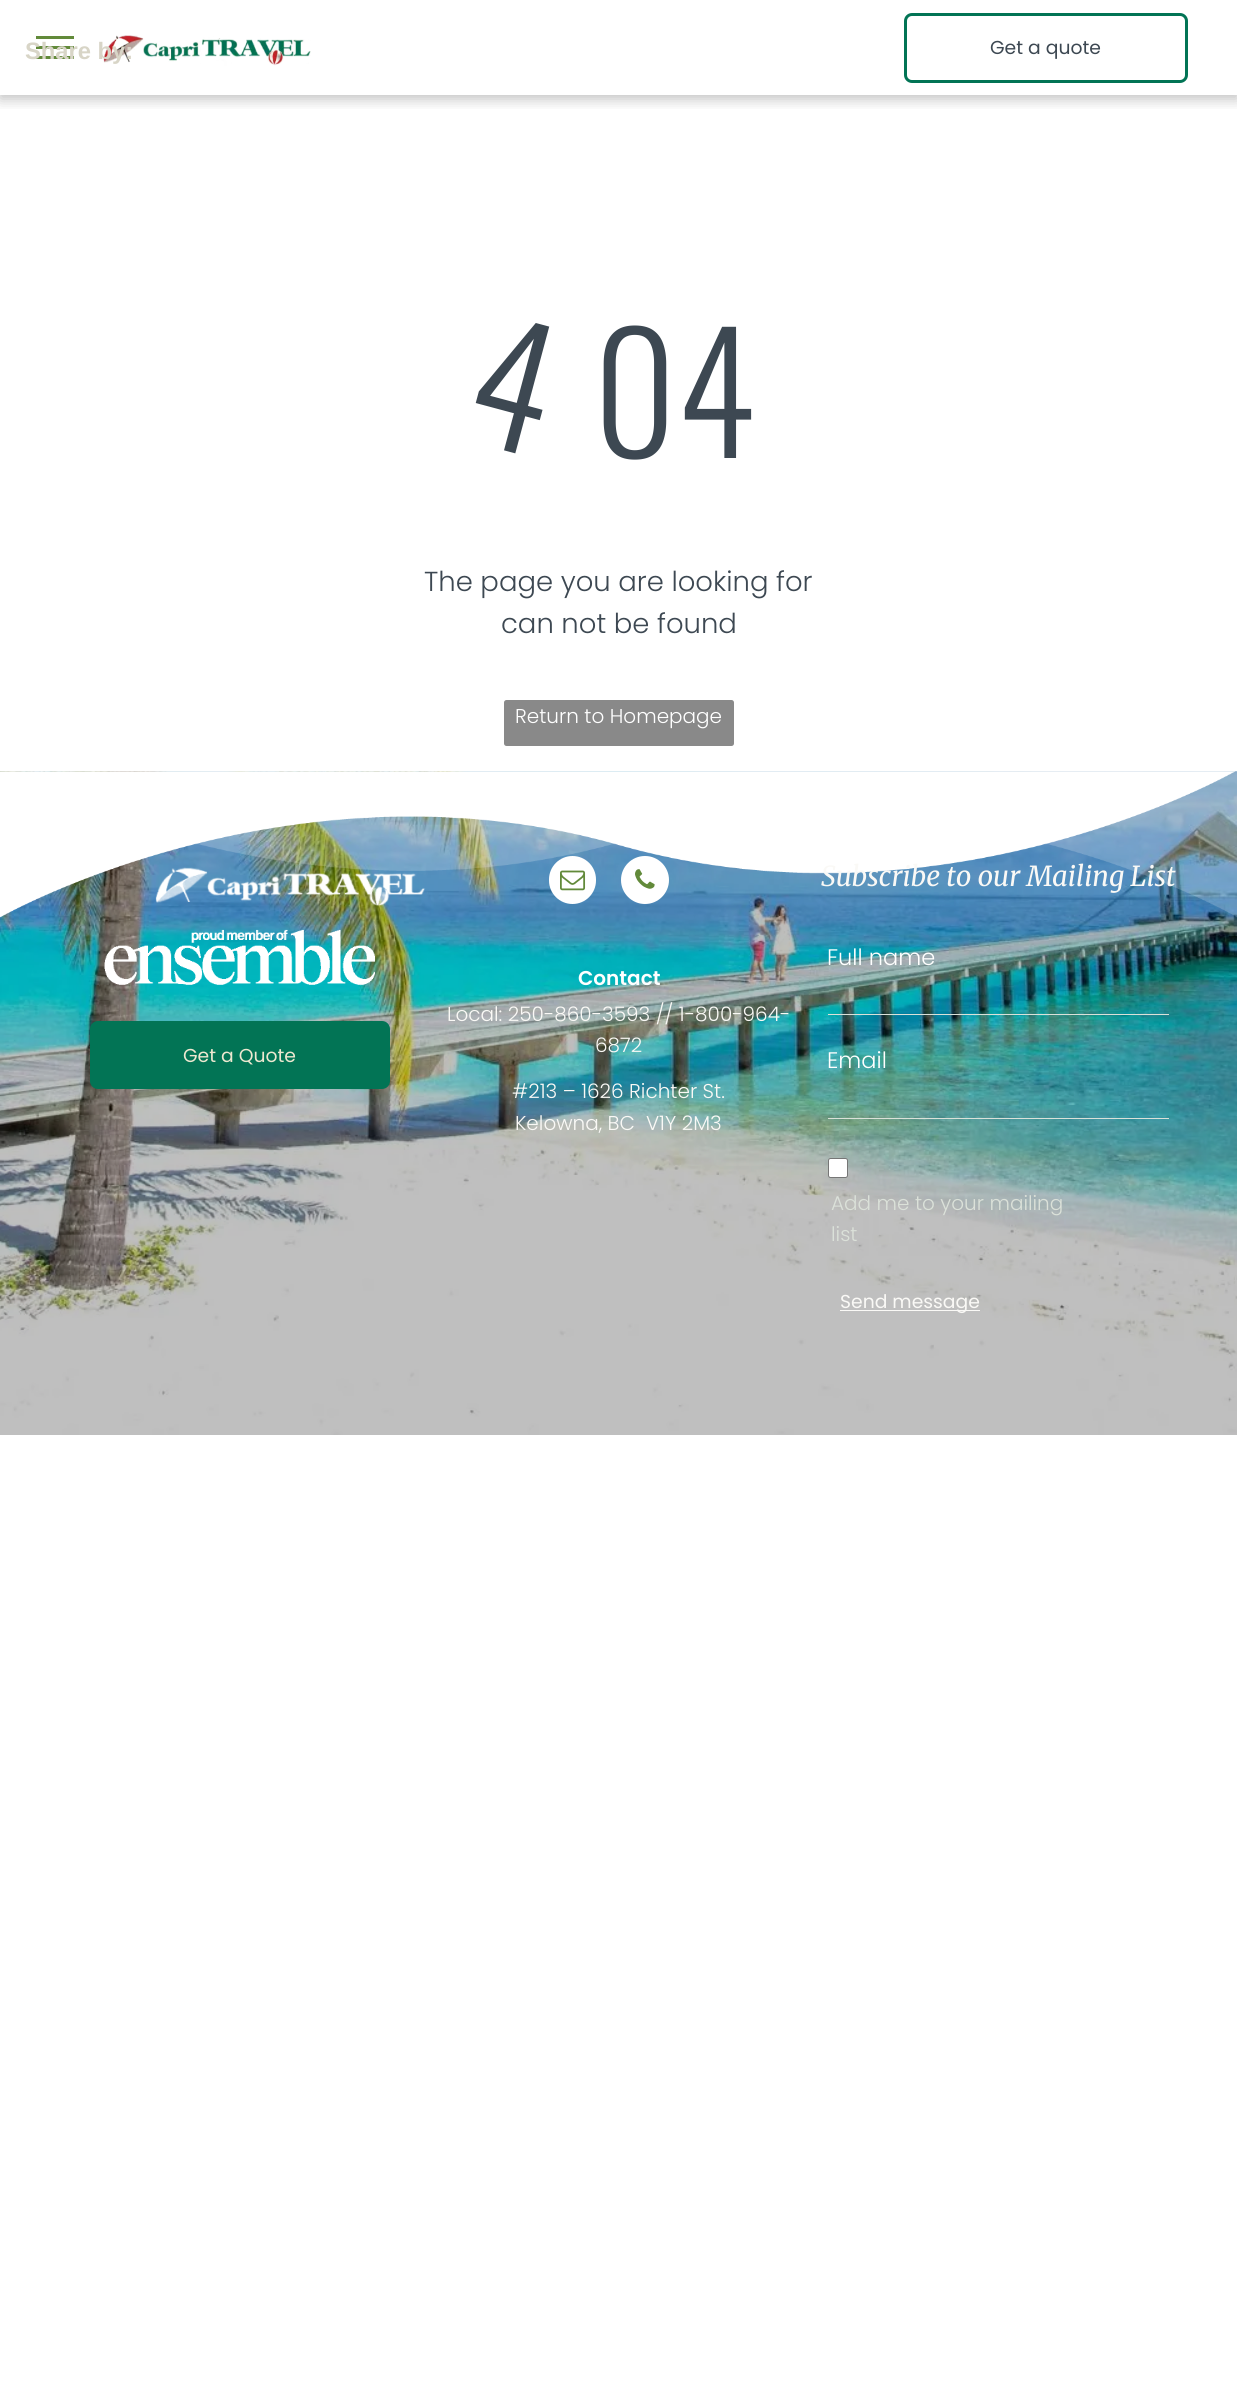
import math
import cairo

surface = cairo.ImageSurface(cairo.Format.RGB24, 1237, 2398)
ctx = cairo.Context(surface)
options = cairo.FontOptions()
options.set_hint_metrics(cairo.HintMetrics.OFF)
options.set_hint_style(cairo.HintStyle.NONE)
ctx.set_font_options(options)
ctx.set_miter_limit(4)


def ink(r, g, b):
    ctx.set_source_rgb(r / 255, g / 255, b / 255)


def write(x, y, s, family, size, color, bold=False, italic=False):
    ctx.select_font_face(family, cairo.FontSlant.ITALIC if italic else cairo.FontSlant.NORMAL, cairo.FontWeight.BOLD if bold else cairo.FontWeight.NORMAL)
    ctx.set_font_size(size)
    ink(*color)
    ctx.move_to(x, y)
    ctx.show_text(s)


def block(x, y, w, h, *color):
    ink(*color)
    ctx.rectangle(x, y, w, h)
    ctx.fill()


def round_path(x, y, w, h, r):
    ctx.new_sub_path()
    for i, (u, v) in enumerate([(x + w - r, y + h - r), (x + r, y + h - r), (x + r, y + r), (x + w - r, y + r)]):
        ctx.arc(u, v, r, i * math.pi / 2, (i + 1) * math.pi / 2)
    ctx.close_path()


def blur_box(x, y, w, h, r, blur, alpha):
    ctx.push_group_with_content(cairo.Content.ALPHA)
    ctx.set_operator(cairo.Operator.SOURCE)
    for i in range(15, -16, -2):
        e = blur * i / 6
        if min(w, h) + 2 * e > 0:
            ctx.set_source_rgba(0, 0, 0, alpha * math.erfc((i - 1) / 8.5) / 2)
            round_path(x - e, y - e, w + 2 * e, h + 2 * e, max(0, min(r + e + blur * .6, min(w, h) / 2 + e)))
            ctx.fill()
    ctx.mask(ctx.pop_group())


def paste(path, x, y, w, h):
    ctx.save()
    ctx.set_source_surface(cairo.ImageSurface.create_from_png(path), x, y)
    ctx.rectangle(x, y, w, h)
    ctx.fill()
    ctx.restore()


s1 = dict(family="Liberation Sans", size=23.75, color=(216, 213, 199), bold=True)
s2 = dict(family="Poppins", size=18.75, color=(61, 72, 82))
s3 = dict(family="Oswald Light", size=162, color=(61, 72, 82))
s4 = dict(family="Poppins Light", size=27.5, color=(61, 72, 82))
s5 = dict(family="Poppins Light", size=20, color=(255, 255, 255))
s6 = dict(family="Poppins", size=18.75, color=(237, 232, 208))
s7 = dict(family="Poppins SemiBold", size=20, color=(255, 255, 255))
s8 = dict(family="Poppins Light", size=20, color=(250, 249, 246))
s9 = dict(family="Merriweather", size=27.5, color=(250, 249, 246), italic=True)
s10 = dict(family="Poppins Light", size=22.5, color=(255, 255, 255))
s11 = dict(family="Poppins Light", size=20, color=(219, 225, 217))
s12 = dict(family="Poppins", size=18.75, color=(250, 249, 246))

ink(255, 255, 255)
ctx.paint()
ctx.save()
ctx.rectangle(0, 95, 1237, 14)
ctx.clip()
ink(0, 0, 0)
blur_box(0, 4, 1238, 95, 0, 7, 0.25)
ctx.restore()
block(36, 46, 38, 3, 98, 138, 58)
block(36, 56, 38, 3, 98, 138, 58)
paste("pic1.png", 103, 35, 208, 31)
write(25, 59, "Share by:", **s1)
block(36, 36, 38, 3, 98, 138, 58)
round_path(905.5, 14.5, 281, 67, 6.5)
ink(2, 116, 85)
ctx.set_line_width(3)
ctx.stroke()
write(990, 54, "Get a quote", **s2)
ctx.save()
ctx.translate(458, 438)
ctx.rotate(15 * math.pi / 180)
write(0, 0, "4", **s3)
ctx.restore()
write(593, 458, "04", **s3)
write(424, 591, "The page you are looking for", **s4)
write(501, 633, "can not be found", **s4)
ink(137, 137, 137)
round_path(504, 700, 230, 46, 2.5)
ctx.fill()
write(515, 723, "Return to Homepage", **s5)
paste("pic2.png", 0, 771, 1237, 664)
paste("pic3.png", 0, 771, 1237, 147)
paste("pic4.png", 155, 867, 273, 40)
paste("pic5.png", 104, 929, 271, 56)
ink(2, 116, 85)
round_path(90, 1021, 300, 68, 8)
ctx.fill()
write(183, 1062, "Get a Quote", **s6)
ink(255, 255, 255)
round_path(549, 856, 47, 48, 23.5)
ctx.fill()
paste("pic6.png", 560, 870, 26, 21)
ctx.arc(645, 880, 24, 0, 2 * math.pi)
ctx.fill()
paste("pic7.png", 635, 869, 20, 20)
write(578, 985, "Contact", **s7)
write(447, 1021, "Local: 250-860-3593 // 1-800-964-", **s8)
write(595, 1052, "6872", **s8)
write(512, 1098, "#213 – 1626 Richter St.", **s8)
write(515, 1130, "Kelowna, BC  V1Y 2M3", **s8)
write(821, 886, "Subscribe to our Mailing List", **s9)
write(827, 965, "Full name", **s10)
block(828, 1014, 341, 1, 219, 225, 217)
write(827, 1068, "Email", **s10)
block(828, 1118, 341, 1, 219, 225, 217)
ink(255, 255, 255)
round_path(828.5, 1158.5, 19, 19, 2)
ctx.fill_preserve()
ink(118, 118, 118)
ctx.set_line_width(1)
ctx.stroke()
write(831, 1210, "Add me to your mailing", **s11)
write(831, 1241, "list", **s11)
block(840, 1310, 140, 1, 250, 249, 246)
write(840, 1308, "Send message", **s12)
surface.write_to_png("screenshot.png")
